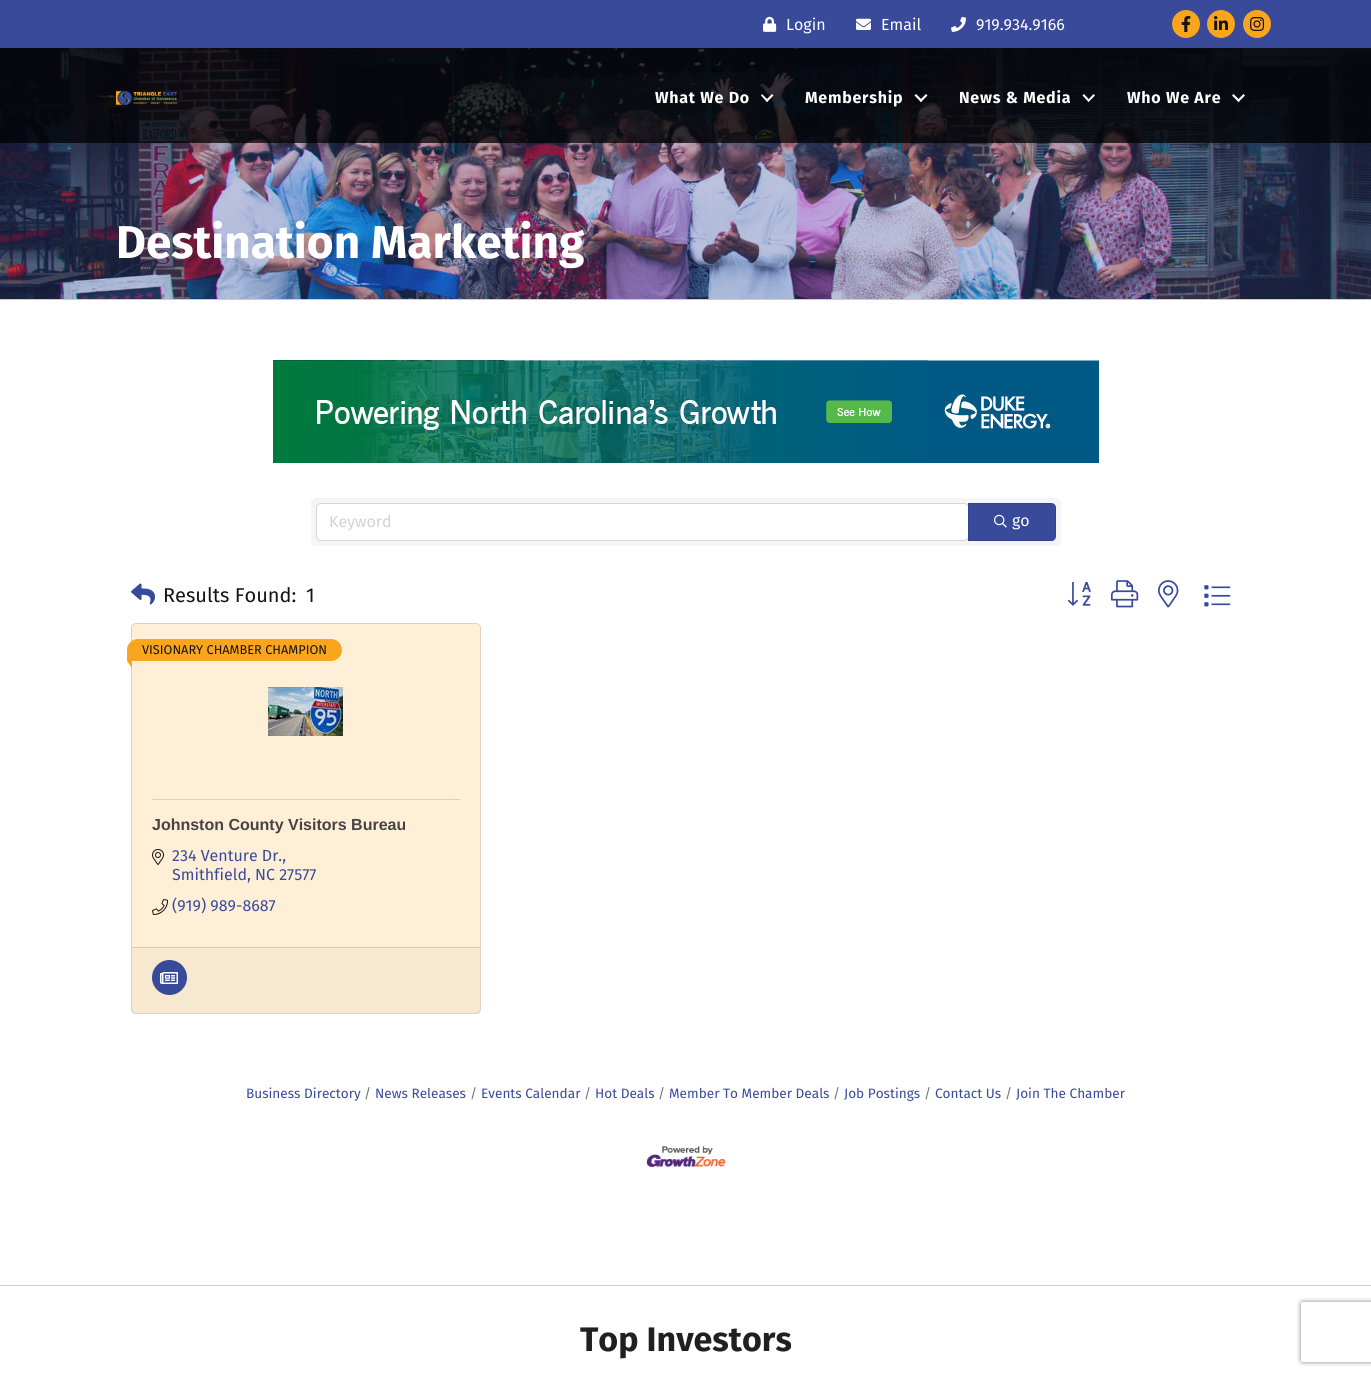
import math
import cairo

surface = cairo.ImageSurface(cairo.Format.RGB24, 1371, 1376)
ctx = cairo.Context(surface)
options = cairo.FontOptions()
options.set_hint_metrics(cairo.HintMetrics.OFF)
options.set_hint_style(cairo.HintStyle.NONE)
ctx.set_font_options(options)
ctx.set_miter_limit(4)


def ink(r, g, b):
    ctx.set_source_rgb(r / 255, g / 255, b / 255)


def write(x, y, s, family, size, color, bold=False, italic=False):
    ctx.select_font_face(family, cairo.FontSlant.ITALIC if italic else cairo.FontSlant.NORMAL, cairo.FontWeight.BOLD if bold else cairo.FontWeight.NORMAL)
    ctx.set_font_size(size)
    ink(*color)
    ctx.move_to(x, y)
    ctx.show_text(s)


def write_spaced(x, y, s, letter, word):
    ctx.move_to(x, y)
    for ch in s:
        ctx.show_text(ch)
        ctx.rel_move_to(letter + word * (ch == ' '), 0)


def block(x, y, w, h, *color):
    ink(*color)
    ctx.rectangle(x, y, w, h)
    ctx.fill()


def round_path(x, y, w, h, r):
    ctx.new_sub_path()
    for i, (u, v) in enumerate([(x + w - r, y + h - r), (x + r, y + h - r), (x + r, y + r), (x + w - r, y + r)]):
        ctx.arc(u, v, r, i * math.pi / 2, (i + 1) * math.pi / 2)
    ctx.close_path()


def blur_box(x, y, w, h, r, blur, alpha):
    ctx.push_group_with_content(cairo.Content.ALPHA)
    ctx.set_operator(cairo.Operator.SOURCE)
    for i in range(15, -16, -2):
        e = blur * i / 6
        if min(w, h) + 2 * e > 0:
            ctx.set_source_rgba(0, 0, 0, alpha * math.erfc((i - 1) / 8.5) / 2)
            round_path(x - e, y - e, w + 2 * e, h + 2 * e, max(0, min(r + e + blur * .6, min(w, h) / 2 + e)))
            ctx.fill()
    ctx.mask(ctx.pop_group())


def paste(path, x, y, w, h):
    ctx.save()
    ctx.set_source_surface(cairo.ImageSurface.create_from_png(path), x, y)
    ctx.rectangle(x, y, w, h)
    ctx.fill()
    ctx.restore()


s1 = dict(family="Fira Sans", size=16, color=(255, 255, 255))
s2 = dict(family="Fira Sans", size=46, color=(255, 255, 255), bold=True)
s3 = dict(family="Fira Sans", size=16, color=(210, 210, 210))
s4 = dict(family="Fira Sans", size=20, color=(22, 19, 19))
s5 = dict(family="Fira Sans", size=12.75, color=(22, 19, 19))
s6 = dict(family="Liberation Sans", size=16, color=(68, 68, 68), bold=True)
s7 = dict(family="Fira Sans", size=16, color=(57, 74, 155))
s8 = dict(family="Fira Sans", size=13.6, color=(57, 74, 155))
s9 = dict(family="Fira Sans", size=13.6, color=(108, 117, 125))
s10 = dict(family="Fira Sans", size=34, color=(35, 31, 32), bold=True)

ink(57, 74, 155)
ctx.paint()
paste("pic1.png", 763, 16, 14, 16)
write(786, 30, "Login", **s1)
paste("pic2.png", 856, 18, 15, 12)
write(881, 30, "Email", **s1)
paste("pic3.png", 951, 16, 15, 16)
write(976, 30, "919.934.9166", **s1)
ink(250, 165, 30)
ctx.new_path()
ctx.arc(1186, 24, 14, 0, 2 * math.pi)
ctx.fill()
paste("pic4.png", 1181, 16, 10, 16)
ctx.arc(1221, 24, 14, 0, 2 * math.pi)
ctx.fill()
paste("pic5.png", 1214, 16, 14, 14)
ctx.arc(1257, 24, 14, 0, 2 * math.pi)
ctx.fill()
paste("pic6.png", 1250, 17, 15, 14)
paste("pic8.png", 0, 48, 1371, 251)
ctx.set_source_rgba(0, 0, 0, 0.75)
ctx.rectangle(0, 48, 1371, 95)
ctx.fill()
paste("pic7.png", 116, 90, 61, 16)
ctx.select_font_face("Fira Sans", cairo.FontSlant.NORMAL, cairo.FontWeight.BOLD)
ink(255, 255, 255)
write_spaced(655, 103, "What We Do", 0.75, 0)
ctx.new_path()
ctx.move_to(772, 94)
ctx.line_to(773.5, 95.5)
ctx.line_to(767, 102)
ctx.line_to(765.5, 100.5)
ctx.close_path()
ctx.fill()
ctx.new_path()
ctx.move_to(762, 94)
ctx.line_to(768.5, 100.5)
ctx.line_to(767, 102)
ctx.line_to(761, 95.5)
ctx.close_path()
ctx.fill()
write_spaced(805, 103, "Membership", 0.75, 0)
ctx.new_path()
ctx.move_to(926, 94)
ctx.line_to(927.5, 95.5)
ctx.line_to(921, 102)
ctx.line_to(919.5, 100.5)
ctx.close_path()
ctx.fill()
ctx.new_path()
ctx.move_to(916, 94)
ctx.line_to(922.5, 100.5)
ctx.line_to(921, 102)
ctx.line_to(914.5, 95.5)
ctx.close_path()
ctx.fill()
write_spaced(959, 103, "News & Media", 0.75, 0)
ctx.new_path()
ctx.move_to(1093.5, 94)
ctx.line_to(1095, 95.5)
ctx.line_to(1088.5, 102)
ctx.line_to(1087.5, 100.5)
ctx.close_path()
ctx.fill()
ctx.new_path()
ctx.move_to(1084, 94)
ctx.line_to(1090, 100.5)
ctx.line_to(1088.5, 102)
ctx.line_to(1082.5, 95.5)
ctx.close_path()
ctx.fill()
write_spaced(1127, 103, "Who We Are", 0.75, 0)
ctx.new_path()
ctx.move_to(1243.5, 94)
ctx.line_to(1245, 95.5)
ctx.line_to(1238.5, 102)
ctx.line_to(1237, 100.5)
ctx.close_path()
ctx.fill()
ctx.new_path()
ctx.move_to(1233.5, 94)
ctx.line_to(1240, 100.5)
ctx.line_to(1238.5, 102)
ctx.line_to(1232, 95.5)
ctx.close_path()
ctx.fill()
block(0, 300, 1371, 985, 255, 255, 255)
block(0, 299, 1371, 1, 204, 204, 204)
write(116, 258, "Destination Marketing", **s2)
paste("pic9.png", 273, 360, 826, 103)
ink(245, 245, 245)
round_path(311, 498, 750, 48, 5)
ctx.fill()
ink(255, 255, 255)
round_path(316.5, 503.5, 652, 37, 4.5)
ctx.fill_preserve()
ink(214, 214, 214)
ctx.set_line_width(1)
ctx.stroke()
write(329, 527, "Keyword", **s3)
ink(57, 74, 155)
ctx.new_path()
ctx.move_to(968, 503)
ctx.line_to(1051, 503)
ctx.curve_to(1054, 503, 1056, 505, 1056, 508)
ctx.line_to(1056, 536)
ctx.curve_to(1056, 539, 1054, 541, 1051, 541)
ctx.line_to(968, 541)
ctx.close_path()
ctx.fill()
ctx.new_path()
ctx.move_to(968.5, 503.5)
ctx.line_to(1051, 503.5)
ctx.curve_to(1053.5, 503.5, 1055.5, 505.5, 1055.5, 508)
ctx.line_to(1055.5, 536)
ctx.curve_to(1055.5, 538.5, 1053.5, 540.5, 1051, 540.5)
ctx.line_to(968.5, 540.5)
ctx.close_path()
ctx.set_source_rgba(0, 0, 0, 0.12)
ctx.stroke()
paste("pic10.png", 994, 514, 13, 14)
write(1012, 526, "go", **s1)
paste("pic11.png", 131, 583, 24, 22)
write(163, 602, "Results Found:", **s4)
write(306, 602, "1", **s4)
paste("pic12.png", 1067, 581, 24, 25)
paste("pic13.png", 1111, 580, 28, 28)
paste("pic14.png", 1158, 580, 21, 28)
paste("pic15.png", 1204, 585, 27, 22)
ink(254, 239, 214)
round_path(131, 623, 350, 391, 5)
ctx.fill()
round_path(131.5, 623.5, 349, 390, 4.5)
ctx.set_source_rgba(0, 0, 0, 0.12)
ctx.stroke()
ink(250, 165, 30)
ctx.new_path()
ctx.move_to(138, 639)
ctx.line_to(331, 639)
ctx.curve_to(337, 639, 342, 644, 342, 650)
ctx.curve_to(342, 656, 337, 661, 331, 661)
ctx.line_to(127.5, 661)
ctx.curve_to(127, 661, 127, 661, 127, 660.5)
ctx.line_to(127, 650)
ctx.curve_to(127, 644, 132, 639, 138, 639)
ctx.close_path()
ctx.fill()
write(142, 654, "VISIONARY CHAMBER CHAMPION", **s5)
ink(250, 165, 30)
ctx.new_path()
ctx.move_to(132, 654)
ctx.line_to(132, 668)
ctx.line_to(127, 661)
ctx.close_path()
ctx.fill()
paste("pic16.png", 268, 687, 75, 49)
block(152, 799, 308, 1, 222, 209, 187)
write(152, 830, "Johnston County Visitors Bureau", **s6)
paste("pic17.png", 152, 849, 12, 16)
write(172, 861, "234 Venture Dr.,", **s7)
write(172, 880, "Smithfield, NC 27577", **s7)
paste("pic18.png", 152, 899, 16, 16)
write(172, 911, "(919) 989-8687", **s7)
ctx.set_source_rgba(0, 0, 0, 0.03)
ctx.rectangle(132, 948, 348, 65)
ctx.fill()
block(132, 947, 348, 1, 216, 203, 182)
ink(57, 74, 155)
ctx.arc(169.5, 977.5, 17.5, 0, 2 * math.pi)
ctx.fill()
paste("pic19.png", 160, 972, 18, 12)
write(246, 1098, "Business Directory", **s8)
write(364, 1098, "/", **s9)
write(375, 1098, "News Releases", **s8)
write(470, 1098, "/", **s9)
write(481, 1098, "Events Calendar", **s8)
write(584, 1098, "/", **s9)
write(595, 1098, "Hot Deals", **s8)
write(658, 1098, "/", **s9)
write(669, 1098, "Member To Member Deals", **s8)
write(833, 1098, "/", **s9)
write(844, 1098, "Job Postings", **s8)
write(924, 1098, "/", **s9)
write(935, 1098, "Contact Us", **s8)
write(1005, 1098, "/", **s9)
write(1016, 1098, "Join The Chamber", **s8)
paste("pic20.png", 646, 1146, 80, 21)
block(0, 1286, 1371, 90, 255, 255, 255)
block(0, 1285, 1371, 1, 204, 204, 204)
write(580, 1351, "Top Investors", **s10)
ctx.save()
ctx.set_fill_rule(cairo.FillRule.EVEN_ODD)
ctx.new_path()
ctx.move_to(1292, 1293)
ctx.line_to(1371, 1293)
ctx.line_to(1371, 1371)
ctx.line_to(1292, 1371)
ctx.close_path()
ctx.move_to(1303, 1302)
ctx.line_to(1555, 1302)
ctx.curve_to(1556, 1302, 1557, 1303, 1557, 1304)
ctx.line_to(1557, 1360)
ctx.curve_to(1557, 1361, 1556, 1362, 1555, 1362)
ctx.line_to(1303, 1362)
ctx.curve_to(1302, 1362, 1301, 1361, 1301, 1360)
ctx.line_to(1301, 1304)
ctx.curve_to(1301, 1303, 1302, 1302, 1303, 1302)
ctx.close_path()
ctx.clip()
ink(128, 128, 128)
blur_box(1301, 1302, 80, 60, 2, 2.5, 1)
ctx.restore()
surface.write_to_png("screenshot.png")
